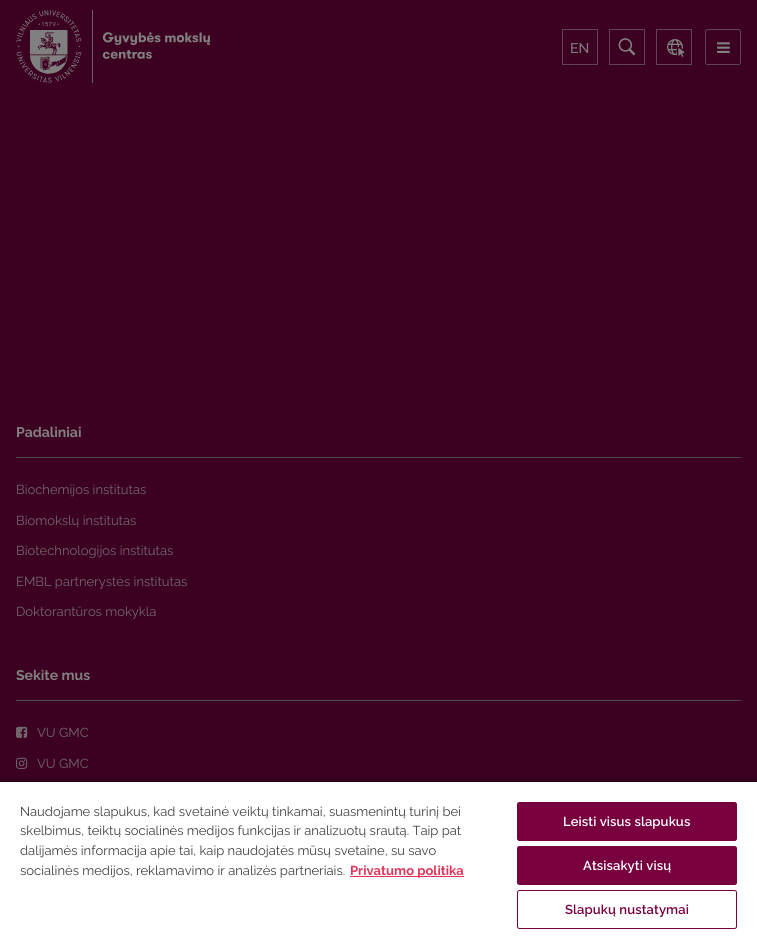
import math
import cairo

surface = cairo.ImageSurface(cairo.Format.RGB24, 757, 939)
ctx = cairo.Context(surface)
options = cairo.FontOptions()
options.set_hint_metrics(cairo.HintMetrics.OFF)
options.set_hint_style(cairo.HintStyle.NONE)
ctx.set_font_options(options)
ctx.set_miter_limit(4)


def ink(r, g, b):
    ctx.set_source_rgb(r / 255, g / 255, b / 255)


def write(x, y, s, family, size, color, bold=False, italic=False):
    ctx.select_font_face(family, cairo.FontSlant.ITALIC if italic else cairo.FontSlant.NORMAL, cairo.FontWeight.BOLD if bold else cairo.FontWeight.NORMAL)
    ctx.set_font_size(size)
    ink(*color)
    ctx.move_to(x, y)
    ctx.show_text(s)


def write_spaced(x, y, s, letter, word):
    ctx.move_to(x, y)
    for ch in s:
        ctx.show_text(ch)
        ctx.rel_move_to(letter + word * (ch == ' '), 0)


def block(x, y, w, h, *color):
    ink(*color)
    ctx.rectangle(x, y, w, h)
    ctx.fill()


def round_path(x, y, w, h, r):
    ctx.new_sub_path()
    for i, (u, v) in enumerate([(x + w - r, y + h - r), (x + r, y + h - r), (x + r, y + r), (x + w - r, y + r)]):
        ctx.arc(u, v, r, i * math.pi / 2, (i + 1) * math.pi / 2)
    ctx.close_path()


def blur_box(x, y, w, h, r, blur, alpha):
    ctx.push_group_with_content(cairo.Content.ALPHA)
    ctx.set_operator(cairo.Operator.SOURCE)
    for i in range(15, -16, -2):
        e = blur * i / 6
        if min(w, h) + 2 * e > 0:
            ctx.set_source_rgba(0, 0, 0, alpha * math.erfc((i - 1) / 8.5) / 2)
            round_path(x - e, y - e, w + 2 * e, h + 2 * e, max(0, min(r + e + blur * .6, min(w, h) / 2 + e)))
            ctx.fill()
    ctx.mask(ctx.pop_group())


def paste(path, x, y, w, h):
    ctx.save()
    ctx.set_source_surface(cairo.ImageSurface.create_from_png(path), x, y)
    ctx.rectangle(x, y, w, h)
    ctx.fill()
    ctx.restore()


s1 = dict(family="Raleway Medium", size=14, color=(128, 128, 128))
s2 = dict(family="Raleway", size=14, color=(128, 128, 128), bold=True)
s3 = dict(family="Raleway", size=13, color=(114, 102, 109))
s4 = dict(family="Raleway", size=13, color=(65, 65, 65))
s5 = dict(family="Raleway", size=13, color=(225, 53, 89), bold=True)

ink(60, 0, 32)
ctx.paint()
paste("pic1.png", 16, 10, 194, 73)
ctx.rectangle(562.5, 29.5, 35, 35)
ink(97, 67, 82)
ctx.set_line_width(1)
ctx.stroke()
write(570, 53, "EN", **s1)
paste("pic2.png", 618, 38, 18, 18)
ctx.rectangle(609.5, 29.5, 35, 35)
ink(97, 67, 82)
ctx.stroke()
ctx.rectangle(656.5, 29.5, 35, 35)
ctx.stroke()
paste("pic3.png", 667, 39, 18, 18)
round_path(705.5, 29.5, 35, 35, 2)
ctx.stroke()
paste("pic4.png", 717, 42, 13, 11)
block(16, 457, 725, 1, 75, 75, 75)
write(16, 437, "Padaliniai", **s2)
write(16, 494, "Biochemijos institutas", **s3)
write(16, 525, "Biomokslų institutas", **s3)
write(16, 555, "Biotechnologijos institutas", **s3)
write(16, 586, "EMBL partnerystės institutas", **s3)
write(16, 616, "Doktorantūros mokykla", **s3)
block(16, 700, 725, 1, 75, 75, 75)
write(16, 680, "Sekite mus", **s2)
paste("pic5.png", 16, 726, 12, 12)
write(37, 737, "VU GMC", **s3)
paste("pic6.png", 16, 757, 12, 12)
write(37, 768, "VU GMC", **s3)
ink(0, 0, 0)
blur_box(0, 780, 757, 159, 0, 2, 0.35)
block(0, 782, 757, 157, 255, 255, 255)
write(20, 816, "Naudojame slapukus, kad svetainė veiktų tinkamai, suasmenintų turinį bei", **s4)
write(20, 835, "skelbimus, teiktų socialinės medijos funkcijas ir analizuotų srautą. Taip pat", **s4)
write(20, 855, "dalijamės informacija apie tai, kaip naudojatės mūsų svetaine, su savo", **s4)
write(20, 875, "socialinės medijos, reklamavimo ir analizės partneriais.", **s4)
block(350, 876, 114, 1, 225, 53, 89)
write(350, 875, "Privatumo politika", **s5)
ink(120, 0, 63)
round_path(517.5, 802.5, 219, 38, 2)
ctx.fill_preserve()
ctx.stroke()
ctx.select_font_face("Raleway SemiBold")
ink(255, 255, 255)
write_spaced(563, 826, "Leisti visus slapukus", 0.1, 0)
ink(120, 0, 63)
round_path(517.5, 846.5, 219, 38, 2)
ctx.fill_preserve()
ctx.stroke()
ink(255, 255, 255)
write_spaced(583, 870, "Atsisakyti visų", 0.1, 0)
round_path(517.5, 890.5, 219, 38, 2)
ink(120, 0, 63)
ctx.stroke()
write_spaced(565, 914, "Slapukų nustatymai", 0.1, 0)
surface.write_to_png("screenshot.png")
